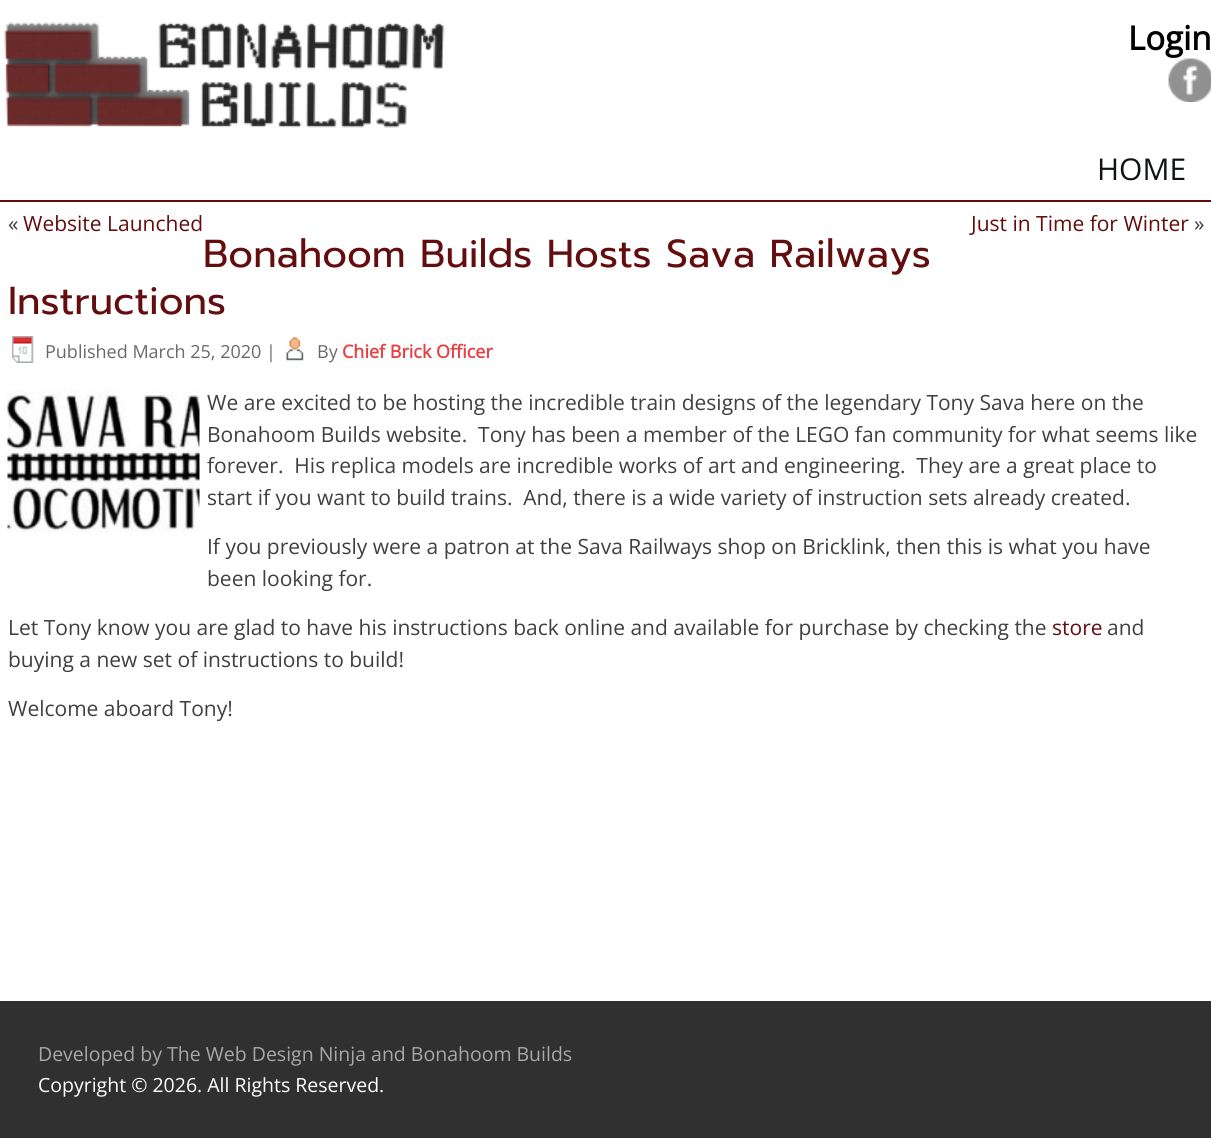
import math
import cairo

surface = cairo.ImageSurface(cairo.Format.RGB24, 1211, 1138)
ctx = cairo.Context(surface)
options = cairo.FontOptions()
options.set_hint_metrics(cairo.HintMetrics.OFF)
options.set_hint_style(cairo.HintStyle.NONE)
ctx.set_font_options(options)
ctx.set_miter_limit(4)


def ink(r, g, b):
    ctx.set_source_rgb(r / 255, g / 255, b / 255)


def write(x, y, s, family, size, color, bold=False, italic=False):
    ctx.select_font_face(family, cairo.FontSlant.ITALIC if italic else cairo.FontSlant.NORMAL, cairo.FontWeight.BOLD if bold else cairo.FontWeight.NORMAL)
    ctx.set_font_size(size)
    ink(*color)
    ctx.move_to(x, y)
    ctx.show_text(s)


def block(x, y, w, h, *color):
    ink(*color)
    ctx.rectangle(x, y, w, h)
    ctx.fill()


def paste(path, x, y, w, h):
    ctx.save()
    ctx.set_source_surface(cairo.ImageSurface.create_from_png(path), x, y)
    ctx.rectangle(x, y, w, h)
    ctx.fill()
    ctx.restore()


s1 = dict(family="Open Sans", size=33, color=(0, 0, 0), bold=True)
s2 = dict(family="Open Sans", size=30, color=(17, 20, 23))
s3 = dict(family="Open Sans", size=21, color=(64, 64, 64))
s4 = dict(family="Open Sans", size=21, color=(100, 13, 15))
s5 = dict(family="Prompt", size=39, color=(100, 13, 15))
s6 = dict(family="Open Sans", size=18, color=(105, 105, 105))
s7 = dict(family="Open Sans", size=18, color=(230, 65, 68), bold=True)
s8 = dict(family="Open Sans", size=19.5, color=(168, 168, 168))
s9 = dict(family="Open Sans", size=19.5, color=(255, 255, 255))

ink(255, 255, 255)
ctx.paint()
paste("pic1.png", 4, 22, 441, 106)
write(1128, 50, "Login", **s1)
paste("pic2.png", 1168, 58, 43, 44)
block(0, 200, 1211, 2, 100, 13, 15)
write(1097, 180, "HOME", **s2)
write(8, 231, "«", **s3)
write(23, 231, "Website Launched", **s4)
write(971, 231, "Just in Time for Winter", **s4)
write(1194, 231, "»", **s3)
write(203, 267, "Bonahoom Builds Hosts Sava Railways", **s5)
write(8, 314, "Instructions", **s5)
paste("pic3.png", 11, 336, 23, 27)
write(45, 358, "Published March 25, 2020 |", **s6)
paste("pic4.png", 286, 337, 18, 24)
write(317, 358, "By", **s6)
write(342, 358, "Chief Brick Officer", **s7)
paste("pic5.png", 7, 389, 193, 143)
write(207, 410, "We are excited to be hosting the incredible train designs of the legendary Tony Sava here on the", **s3)
write(207, 442, "Bonahoom Builds website.  Tony has been a member of the LEGO fan community for what seems like", **s3)
write(207, 473, "forever.  His replica models are incredible works of art and engineering.  They are a great place to", **s3)
write(207, 505, "start if you want to build trains.  And, there is a wide variety of instruction sets already created.", **s3)
write(207, 554, "If you previously were a patron at the Sava Railways shop on Bricklink, then this is what you have", **s3)
write(207, 586, "been looking for.", **s3)
write(8, 635, "Let Tony know you are glad to have his instructions back online and available for purchase by checking the", **s3)
write(1052, 635, "store", **s4)
write(1107, 635, "and", **s3)
write(8, 667, "buying a new set of instructions to build!", **s3)
write(8, 716, "Welcome aboard Tony!", **s3)
block(0, 1001, 1211, 137, 48, 48, 48)
write(38, 1061, "Developed by The Web Design Ninja and Bonahoom Builds", **s8)
write(38, 1092, "Copyright © 2026. All Rights Reserved.", **s9)
surface.write_to_png("screenshot.png")
